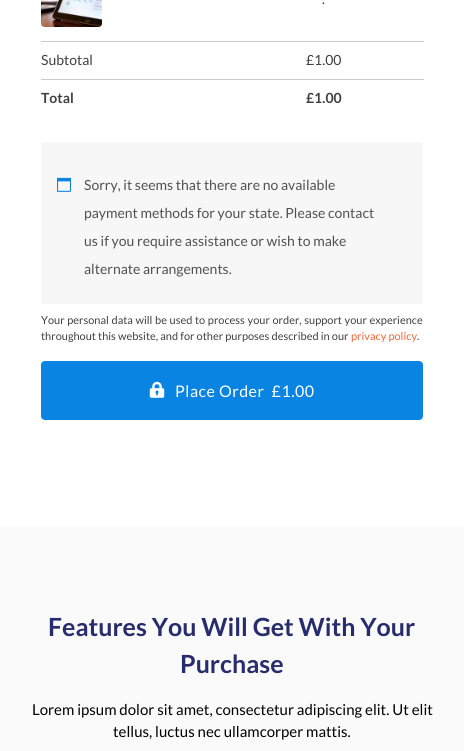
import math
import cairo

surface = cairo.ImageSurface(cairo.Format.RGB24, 464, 751)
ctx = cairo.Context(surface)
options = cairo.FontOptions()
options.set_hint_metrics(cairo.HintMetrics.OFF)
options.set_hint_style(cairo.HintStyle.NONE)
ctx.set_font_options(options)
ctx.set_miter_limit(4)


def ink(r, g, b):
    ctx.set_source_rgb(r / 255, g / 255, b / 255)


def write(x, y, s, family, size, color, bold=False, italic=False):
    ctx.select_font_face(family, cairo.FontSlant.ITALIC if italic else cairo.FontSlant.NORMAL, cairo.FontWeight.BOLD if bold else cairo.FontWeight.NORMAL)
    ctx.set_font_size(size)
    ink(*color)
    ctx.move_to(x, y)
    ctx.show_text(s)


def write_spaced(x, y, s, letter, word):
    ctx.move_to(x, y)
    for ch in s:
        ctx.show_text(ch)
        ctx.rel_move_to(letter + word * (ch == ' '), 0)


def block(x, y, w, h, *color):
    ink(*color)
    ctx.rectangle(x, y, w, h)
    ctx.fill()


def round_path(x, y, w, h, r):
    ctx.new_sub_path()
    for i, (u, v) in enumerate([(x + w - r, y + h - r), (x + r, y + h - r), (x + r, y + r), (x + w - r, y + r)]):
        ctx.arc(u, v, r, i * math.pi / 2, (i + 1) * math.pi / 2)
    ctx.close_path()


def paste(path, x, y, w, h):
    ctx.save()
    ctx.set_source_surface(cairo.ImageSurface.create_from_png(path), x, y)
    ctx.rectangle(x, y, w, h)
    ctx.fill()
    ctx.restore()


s1 = dict(family="Lato", size=14, color=(64, 64, 64))
s2 = dict(family="Lato", size=14, color=(64, 64, 64), bold=True)
s3 = dict(family="Lato", size=14, color=(81, 81, 81))
s4 = dict(family="Lato", size=11, color=(64, 64, 64))
s5 = dict(family="Lato", size=11, color=(241, 99, 52))
s6 = dict(family="Lato", size=25, color=(39, 44, 108), bold=True)
s7 = dict(family="Lato", size=15, color=(0, 0, 0))

ink(255, 255, 255)
ctx.paint()
block(41, 41, 383, 1, 204, 204, 204)
paste("pic1.png", 41, 0, 61, 27)
write(322, 4, ".", **s1)
write(41, 65, "Subtotal", **s1)
write(306, 65, "£1.00", **s1)
write(41, 103, "Total", **s2)
block(41, 79, 383, 1, 204, 204, 204)
write(306, 103, "£1.00", **s2)
block(41, 142, 382, 162, 247, 247, 247)
paste("pic2.png", 57, 177, 14, 15)
write(84, 190, "Sorry, it seems that there are no available", **s3)
write(84, 218, "payment methods for your state. Please contact", **s3)
write(84, 246, "us if you require assistance or wish to make", **s3)
write(84, 274, "alternate arrangements.", **s3)
ctx.set_font_size(11)
ink(64, 64, 64)
write_spaced(41, 324, "Your personal data will be used to process your order, support your experience", 0, 0.5)
write(41, 340, "throughout this website, and for other purposes described in our", **s4)
write(351, 340, "privacy policy", **s5)
write(417, 340, ".", **s4)
ink(9, 132, 227)
round_path(41.5, 361.5, 381, 58, 3.5)
ctx.fill_preserve()
ctx.set_line_width(1)
ctx.stroke()
paste("pic3.png", 149, 381, 16, 17)
ctx.set_font_size(16)
ink(255, 255, 255)
write_spaced(175, 397, "Place Order  £1.00", 0.5, 0)
block(0, 527, 464, 224, 250, 250, 250)
write(48, 636, "Features You Will Get With Your", **s6)
write(180, 673, "Purchase", **s6)
write(32, 715, "Lorem ipsum dolor sit amet, consectetur adipiscing elit. Ut elit", **s7)
write(113, 737, "tellus, luctus nec ullamcorper mattis.", **s7)
surface.write_to_png("screenshot.png")
